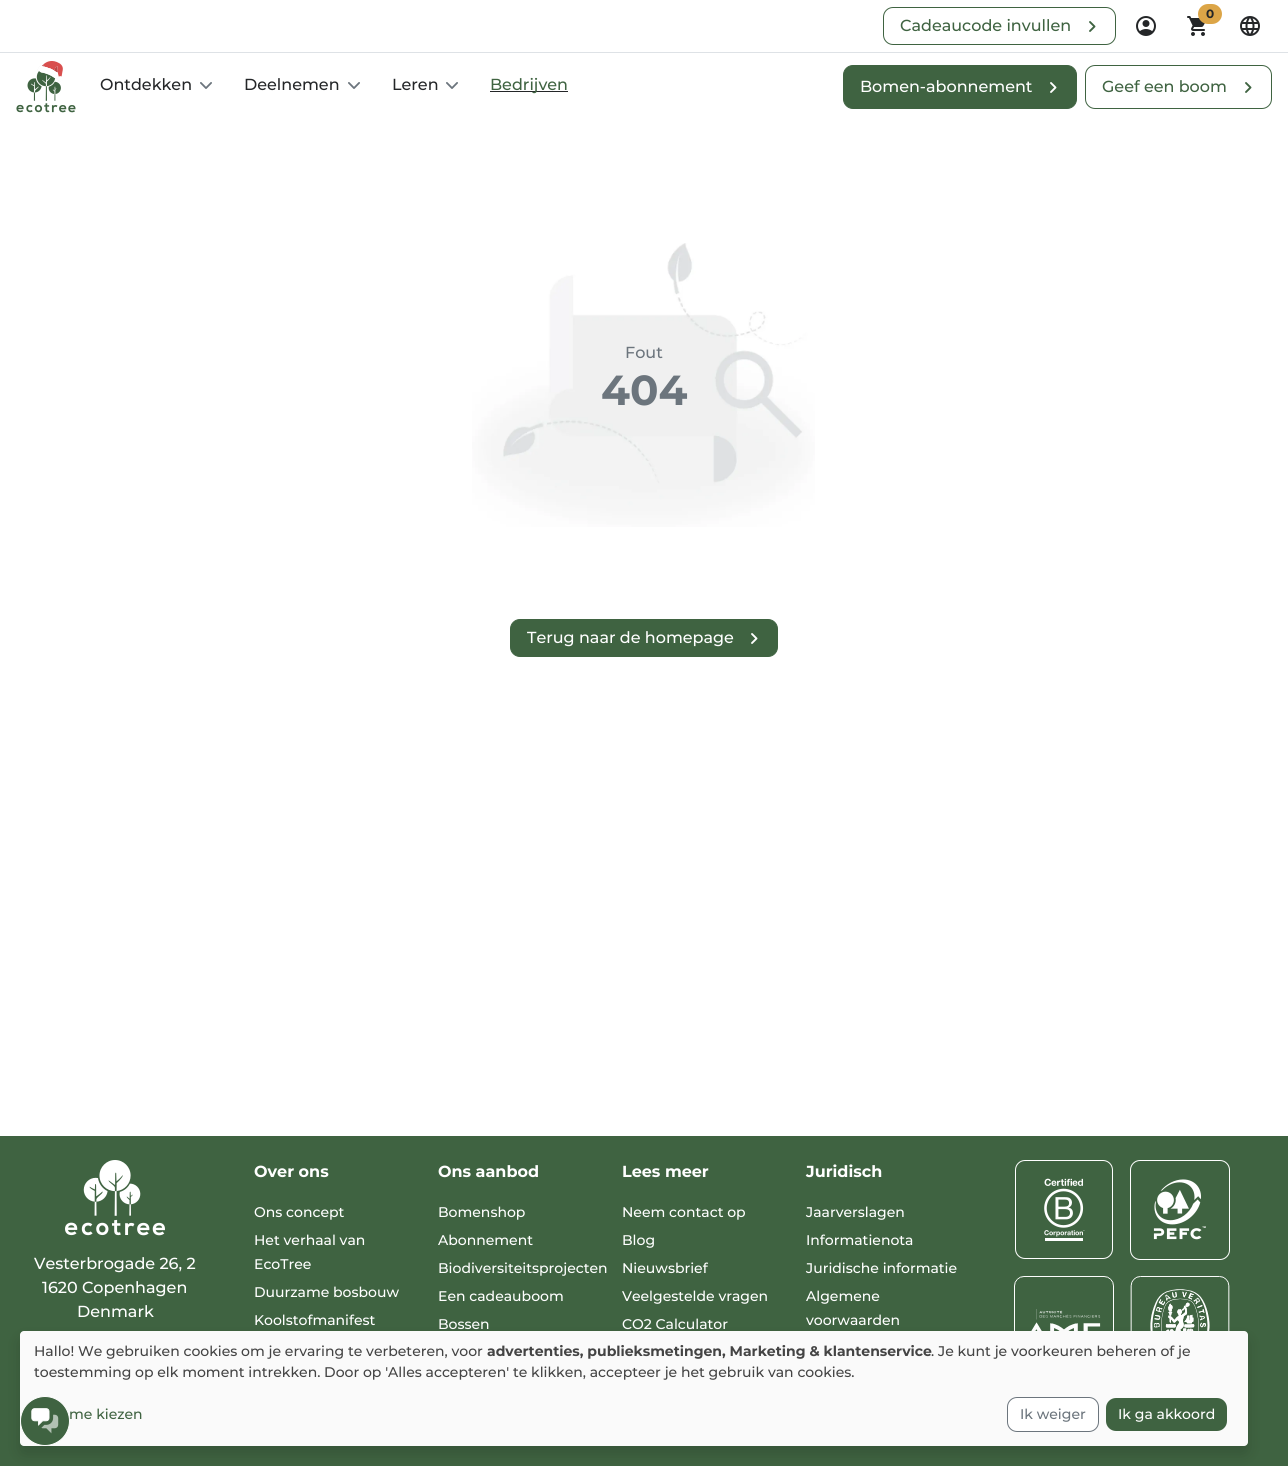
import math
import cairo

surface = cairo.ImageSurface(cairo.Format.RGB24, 1288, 1466)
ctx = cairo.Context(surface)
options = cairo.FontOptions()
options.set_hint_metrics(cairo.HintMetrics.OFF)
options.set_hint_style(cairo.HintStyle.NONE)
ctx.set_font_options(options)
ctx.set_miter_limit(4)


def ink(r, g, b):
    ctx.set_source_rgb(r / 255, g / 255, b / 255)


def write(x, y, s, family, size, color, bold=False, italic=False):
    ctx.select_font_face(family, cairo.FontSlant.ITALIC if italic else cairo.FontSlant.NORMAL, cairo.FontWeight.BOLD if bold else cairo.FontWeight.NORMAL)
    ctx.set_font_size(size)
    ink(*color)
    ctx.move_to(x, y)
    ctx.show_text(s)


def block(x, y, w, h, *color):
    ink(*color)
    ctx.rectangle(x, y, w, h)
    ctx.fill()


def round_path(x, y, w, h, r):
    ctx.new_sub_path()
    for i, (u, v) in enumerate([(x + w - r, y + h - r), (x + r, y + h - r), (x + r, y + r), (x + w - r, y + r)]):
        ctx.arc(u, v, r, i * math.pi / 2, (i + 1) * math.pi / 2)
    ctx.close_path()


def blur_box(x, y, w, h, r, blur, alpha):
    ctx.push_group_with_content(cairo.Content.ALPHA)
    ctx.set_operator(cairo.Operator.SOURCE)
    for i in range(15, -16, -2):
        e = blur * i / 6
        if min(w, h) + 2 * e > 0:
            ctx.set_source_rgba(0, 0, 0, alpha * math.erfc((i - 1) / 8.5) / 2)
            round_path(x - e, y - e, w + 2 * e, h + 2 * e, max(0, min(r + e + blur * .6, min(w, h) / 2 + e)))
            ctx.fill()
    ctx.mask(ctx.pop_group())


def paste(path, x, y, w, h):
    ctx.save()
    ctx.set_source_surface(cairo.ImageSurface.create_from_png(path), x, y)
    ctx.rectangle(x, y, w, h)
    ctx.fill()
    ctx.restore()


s1 = dict(family="Montserrat", size=12, color=(36, 38, 40), bold=True)
s2 = dict(family="Montserrat Medium", size=16, color=(63, 99, 65))
s3 = dict(family="Montserrat Medium", size=16, color=(36, 38, 40))
s4 = dict(family="Montserrat Medium", size=16, color=(255, 255, 255))
s5 = dict(family="Montserrat Medium", size=16, color=(108, 117, 125))
s6 = dict(family="Montserrat", size=42, color=(108, 117, 125), bold=True)
s7 = dict(family="Montserrat", size=16, color=(255, 255, 255), bold=True)
s8 = dict(family="Montserrat Medium", size=14, color=(255, 255, 255))
s9 = dict(family="Montserrat Medium", size=14, color=(68, 68, 68))
s10 = dict(family="Montserrat", size=14, color=(68, 68, 68), bold=True)
s11 = dict(family="Montserrat Medium", size=14, color=(63, 99, 65))
s12 = dict(family="Montserrat Medium", size=14, color=(108, 117, 125))

ink(255, 255, 255)
ctx.paint()
block(0, 52, 1288, 1, 222, 226, 230)
paste("pic1.png", 1187, 16, 18, 20)
ink(220, 165, 71)
round_path(1198, 4, 24, 20, 10)
ctx.fill()
write(1206, 18, "0", **s1)
round_path(883.5, 7.5, 232, 37, 9.5)
ink(63, 99, 65)
ctx.set_line_width(1)
ctx.stroke()
write(900, 31, "Cadeaucode invullen", **s2)
ctx.new_path()
ctx.move_to(1090, 22)
ctx.line_to(1094.5, 26.5)
ctx.line_to(1090, 31)
ctx.set_line_width(1.9)
ctx.set_line_cap(cairo.LineCap.ROUND)
ctx.set_line_join(cairo.LineJoin.ROUND)
ctx.stroke()
paste("pic2.png", 1136, 16, 20, 20)
paste("pic3.png", 1240, 16, 20, 20)
paste("pic4.png", 16, 61, 60, 52)
write(100, 90, "Ontdekken", **s3)
paste("pic5.png", 200, 82, 12, 7)
write(244, 90, "Deelnemen", **s3)
paste("pic5.png", 348, 82, 12, 7)
write(392, 90, "Leren", **s3)
paste("pic5.png", 446, 82, 12, 7)
block(490, 91, 78, 1, 36, 38, 40)
write(490, 90, "Bedrijven", **s2)
round_path(843.5, 65.5, 233, 43, 9.5)
ctx.fill_preserve()
ctx.set_line_width(1)
ctx.set_line_cap(cairo.LineCap.BUTT)
ctx.set_line_join(cairo.LineJoin.MITER)
ctx.stroke()
write(860, 92, "Bomen-abonnement", **s4)
ctx.new_path()
ctx.move_to(1051, 83)
ctx.line_to(1055.5, 87.5)
ctx.line_to(1051, 92)
ctx.set_line_width(1.9)
ctx.set_line_cap(cairo.LineCap.ROUND)
ctx.set_line_join(cairo.LineJoin.ROUND)
ctx.stroke()
round_path(1085.5, 65.5, 186, 43, 9.5)
ink(63, 99, 65)
ctx.set_line_width(1)
ctx.set_line_cap(cairo.LineCap.BUTT)
ctx.set_line_join(cairo.LineJoin.MITER)
ctx.stroke()
write(1102, 92, "Geef een boom", **s2)
ctx.new_path()
ctx.move_to(1246, 83)
ctx.line_to(1250.5, 87.5)
ctx.line_to(1246, 92)
ctx.set_line_width(1.9)
ctx.set_line_cap(cairo.LineCap.ROUND)
ctx.set_line_join(cairo.LineJoin.ROUND)
ctx.stroke()
paste("pic6.png", 472, 243, 343, 284)
write(625, 358, "Fout", **s5)
write(601, 405, "404", **s6)
ink(63, 99, 65)
round_path(510.5, 619.5, 267, 37, 9.5)
ctx.fill_preserve()
ctx.set_line_width(1)
ctx.set_line_cap(cairo.LineCap.BUTT)
ctx.set_line_join(cairo.LineJoin.MITER)
ctx.stroke()
write(527, 643, "Terug naar de homepage", **s4)
ctx.new_path()
ctx.move_to(752, 634)
ctx.line_to(756.5, 638.5)
ctx.line_to(752, 643)
ctx.set_line_width(1.9)
ctx.set_line_cap(cairo.LineCap.ROUND)
ctx.set_line_join(cairo.LineJoin.ROUND)
ctx.stroke()
block(0, 1136, 1288, 330, 63, 99, 65)
paste("pic7.png", 65, 1160, 100, 76)
write(34, 1269, "Vesterbrogade 26, 2", **s4)
write(42, 1293, "1620 Copenhagen", **s4)
write(77, 1317, "Denmark", **s4)
write(254, 1177, "Over ons", **s7)
write(254, 1217, "Ons concept", **s8)
write(254, 1245, "Het verhaal van", **s8)
write(254, 1269, "EcoTree", **s8)
write(254, 1297, "Duurzame bosbouw", **s8)
write(254, 1325, "Koolstofmanifest", **s8)
write(438, 1177, "Ons aanbod", **s7)
write(438, 1217, "Bomenshop", **s8)
write(438, 1245, "Abonnement", **s8)
write(438, 1273, "Biodiversiteitsprojecten", **s8)
write(438, 1301, "Een cadeauboom", **s8)
write(438, 1329, "Bossen", **s8)
write(622, 1177, "Lees meer", **s7)
write(622, 1217, "Neem contact op", **s8)
write(622, 1245, "Blog", **s8)
write(622, 1273, "Nieuwsbrief", **s8)
write(622, 1301, "Veelgestelde vragen", **s8)
write(622, 1329, "CO2 Calculator", **s8)
write(806, 1177, "Juridisch", **s7)
write(806, 1217, "Jaarverslagen", **s8)
write(806, 1245, "Informatienota", **s8)
write(806, 1273, "Juridische informatie", **s8)
write(806, 1301, "Algemene", **s8)
write(806, 1325, "voorwaarden", **s8)
paste("pic8.png", 1015, 1160, 98, 99)
paste("pic9.png", 1130, 1160, 100, 100)
paste("pic10.png", 1014, 1276, 100, 55)
paste("pic11.png", 1130, 1276, 100, 55)
ink(0, 0, 0)
blur_box(20, 1339, 1228, 115, 4, 8, 0.15)
ink(250, 250, 250)
round_path(20, 1331, 1228, 115, 4)
ctx.fill()
write(34, 1356, "Hallo! We gebruiken cookies om je ervaring te verbeteren, voor", **s9)
write(487, 1356, "advertenties, publieksmetingen, Marketing & klantenservice", **s10)
write(931, 1356, ". Je kunt je voorkeuren beheren of je", **s9)
write(34, 1377, "toestemming op elk moment intrekken. Door op 'Alles accepteren' te klikken, accepteer je het gebruik van cookies.", **s9)
write(69, 1419, "me kiezen", **s11)
ink(255, 255, 255)
round_path(1007.5, 1397.5, 91, 34, 9.5)
ctx.fill_preserve()
ink(108, 117, 125)
ctx.set_line_width(1)
ctx.set_line_cap(cairo.LineCap.BUTT)
ctx.set_line_join(cairo.LineJoin.MITER)
ctx.stroke()
write(1020, 1419, "Ik weiger", **s12)
ink(63, 99, 65)
round_path(1106, 1398, 121, 33, 10)
ctx.fill()
write(1118, 1419, "Ik ga akkoord", **s8)
ink(63, 99, 65)
ctx.new_path()
ctx.arc(45, 1421, 24.5, 0, 2 * math.pi)
ctx.fill_preserve()
ink(255, 255, 255)
ctx.stroke()
paste("pic12.png", 31, 1408, 28, 26)
surface.write_to_png("screenshot.png")
